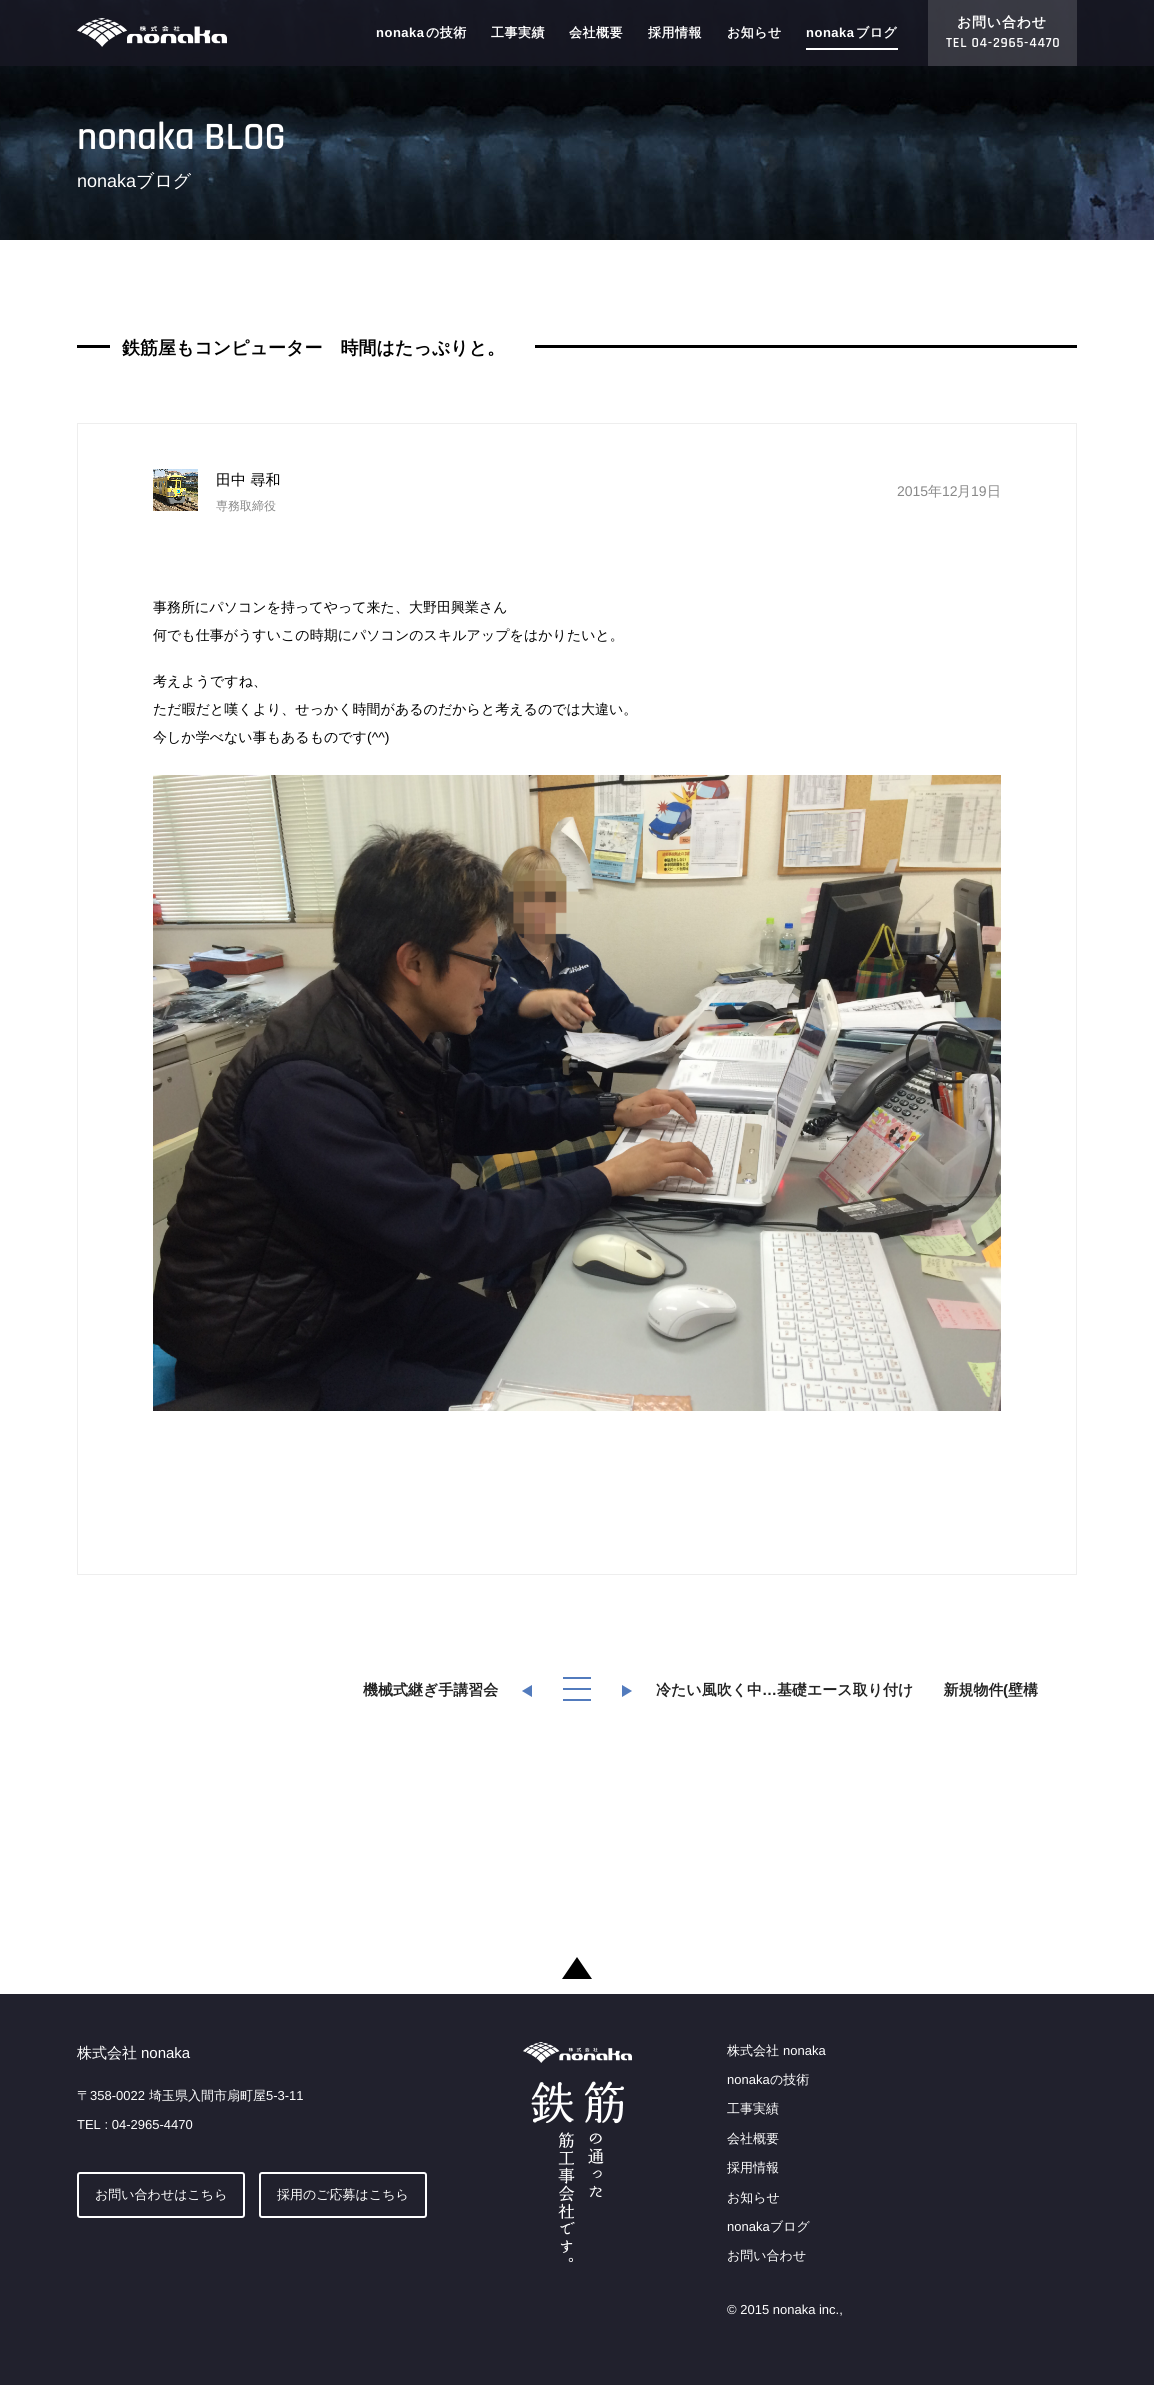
import math
import cairo

surface = cairo.ImageSurface(cairo.Format.RGB24, 1154, 2385)
ctx = cairo.Context(surface)
options = cairo.FontOptions()
options.set_hint_metrics(cairo.HintMetrics.OFF)
options.set_hint_style(cairo.HintStyle.NONE)
ctx.set_font_options(options)
ctx.set_miter_limit(4)


def ink(r, g, b):
    ctx.set_source_rgb(r / 255, g / 255, b / 255)


def write(x, y, s, family, size, color, bold=False, italic=False):
    ctx.select_font_face(family, cairo.FontSlant.ITALIC if italic else cairo.FontSlant.NORMAL, cairo.FontWeight.BOLD if bold else cairo.FontWeight.NORMAL)
    ctx.set_font_size(size)
    ink(*color)
    ctx.move_to(x, y)
    ctx.show_text(s)


def write_spaced(x, y, s, letter, word):
    ctx.move_to(x, y)
    for ch in s:
        ctx.show_text(ch)
        ctx.rel_move_to(letter + word * (ch == ' '), 0)


def block(x, y, w, h, *color):
    ink(*color)
    ctx.rectangle(x, y, w, h)
    ctx.fill()


def round_path(x, y, w, h, r):
    ctx.new_sub_path()
    for i, (u, v) in enumerate([(x + w - r, y + h - r), (x + r, y + h - r), (x + r, y + r), (x + w - r, y + r)]):
        ctx.arc(u, v, r, i * math.pi / 2, (i + 1) * math.pi / 2)
    ctx.close_path()


def paste(path, x, y, w, h):
    ctx.save()
    ctx.set_source_surface(cairo.ImageSurface.create_from_png(path), x, y)
    ctx.rectangle(x, y, w, h)
    ctx.fill()
    ctx.restore()


s1 = dict(family="Rajdhani SemiBold", size=39, color=(255, 255, 255))
s2 = dict(family="Liberation Sans", size=18, color=(255, 255, 255))
s3 = dict(family="WenQuanYi Zen Hei Medium", size=18, color=(255, 255, 255))
s4 = dict(family="WenQuanYi Zen Hei", size=18, color=(0, 0, 0), bold=True)
s5 = dict(family="WenQuanYi Zen Hei Medium", size=15, color=(0, 0, 0))
s6 = dict(family="WenQuanYi Zen Hei Medium", size=12, color=(136, 136, 136))
s7 = dict(family="Liberation Sans", size=14, color=(136, 136, 136))
s8 = dict(family="WenQuanYi Zen Hei Medium", size=14, color=(136, 136, 136))
s9 = dict(family="WenQuanYi Zen Hei Medium", size=14, color=(0, 0, 0))
s10 = dict(family="Liberation Sans", size=14, color=(0, 0, 0))
s11 = dict(family="WenQuanYi Zen Hei", size=15, color=(34, 34, 34), bold=True)
s12 = dict(family="Liberation Sans", size=15, color=(34, 34, 34), bold=True)
s13 = dict(family="WenQuanYi Zen Hei Medium", size=15, color=(255, 255, 255))
s14 = dict(family="Liberation Sans", size=15, color=(255, 255, 255))
s15 = dict(family="WenQuanYi Zen Hei Medium", size=13, color=(255, 255, 255))
s16 = dict(family="Liberation Sans", size=13, color=(255, 255, 255))

ink(255, 255, 255)
ctx.paint()
paste("pic2.png", 0, 0, 1154, 240)
ctx.set_source_rgba(0.09, 0.09, 0.133, 0.9)
ctx.rectangle(0, 0, 1154, 66)
ctx.fill()
paste("pic1.png", 77, 18, 150, 29)
ctx.select_font_face("Liberation Sans", cairo.FontSlant.NORMAL, cairo.FontWeight.BOLD)
ctx.set_font_size(13)
ink(255, 255, 255)
write_spaced(376, 37, "nonaka", 0.5, 0)
ctx.select_font_face("WenQuanYi Zen Hei", cairo.FontSlant.NORMAL, cairo.FontWeight.BOLD)
write_spaced(426, 37, "の技術", 0.5, 0)
write_spaced(491, 37, "工事実績", 0.5, 0)
write_spaced(569, 37, "会社概要", 0.5, 0)
write_spaced(648, 37, "採用情報", 0.5, 0)
write_spaced(727, 37, "お知らせ", 0.5, 0)
block(806, 48, 92, 2, 255, 255, 255)
ctx.select_font_face("Liberation Sans", cairo.FontSlant.NORMAL, cairo.FontWeight.BOLD)
write_spaced(806, 37, "nonaka", 0.5, 0)
ctx.select_font_face("WenQuanYi Zen Hei", cairo.FontSlant.NORMAL, cairo.FontWeight.BOLD)
write_spaced(856, 37, "ブログ", 0.5, 0)
ctx.set_source_rgba(1, 1, 1, 0.15)
ctx.rectangle(928, 0, 149, 66)
ctx.fill()
ctx.set_font_size(14)
ink(255, 255, 255)
write_spaced(957, 27, "お問い合わせ", 0.75, 0)
ctx.select_font_face("Rajdhani SemiBold")
write_spaced(946, 47, "TEL 04-2965-4470", 0.75, 0)
write(77, 149, "nonaka BLOG", **s1)
write(77, 187, "nonaka", **s2)
write(136, 187, "ブログ", **s3)
block(77, 345, 1000, 3, 0, 0, 0)
block(110, 345, 425, 3, 255, 255, 255)
write(122, 354, "鉄筋屋もコンピューター　時間はたっぷりと。", **s4)
ctx.rectangle(77.5, 423.5, 999, 1151)
ink(238, 238, 238)
ctx.set_line_width(1)
ctx.stroke()
paste("pic3.png", 153, 469, 45, 42)
write(216, 485, "田中 尋和", **s5)
write(216, 510, "専務取締役", **s6)
write(897, 496, "2015", **s7)
write(928, 496, "年", **s8)
write(942, 496, "12", **s7)
write(957, 496, "月", **s8)
write(971, 496, "19", **s7)
write(987, 496, "日", **s8)
write(153, 612, "事務所にパソコンを持ってやって来た、大野田興業さん", **s9)
write(153, 640, "何でも仕事がうすいこの時期にパソコンのスキルアップをはかりたいと。", **s9)
write(153, 686, "考えようですね、", **s9)
write(153, 714, "ただ暇だと嘆くより、せっかく時間があるのだからと考えるのでは大違い。", **s9)
write(153, 742, "今しか学べない事もあるものです", **s9)
write(367, 742, "(^^)", **s10)
paste("pic4.png", 153, 775, 848, 636)
paste("pic5.png", 522, 1685, 10, 12)
paste("pic6.png", 522, 1685, 10, 12)
write(363, 1695, "機械式継ぎ手講習会", **s11)
paste("pic7.png", 563, 1677, 28, 24)
paste("pic8.png", 622, 1685, 10, 12)
paste("pic9.png", 622, 1685, 10, 12)
write(656, 1695, "冷たい風吹く中", **s11)
write(762, 1695, "…", **s12)
write(777, 1695, "基礎エース取り付け　　新規物件", **s11)
write(1003, 1695, "(", **s12)
write(1008, 1695, "壁構", **s11)
block(0, 1994, 1154, 391, 33, 33, 45)
paste("pic10.png", 562, 1957, 30, 22)
write(77, 2058, "株式会社", **s13)
write(141, 2058, "nonaka", **s14)
write(77, 2100, "〒", **s15)
write(90, 2100, "358-0022", **s16)
write(149, 2100, "埼玉県入間市扇町屋", **s15)
write(266, 2100, "5-3-11", **s16)
write(77, 2129, "TEL : 04-2965-4470", **s16)
round_path(78, 2173, 166, 44, 2)
ctx.set_line_width(2)
ctx.stroke()
write(95, 2199, "お問い合わせはこちら", **s15)
round_path(260, 2173, 166, 44, 2)
ctx.stroke()
write(277, 2199, "採用のご応募はこちら", **s15)
paste("pic11.png", 523, 2042, 109, 221)
write(727, 2055, "株式会社", **s15)
write(783, 2055, "nonaka", **s16)
write(727, 2084, "nonaka", **s16)
write(770, 2084, "の技術", **s15)
write(727, 2113, "工事実績", **s15)
write(727, 2143, "会社概要", **s15)
write(727, 2172, "採用情報", **s15)
write(727, 2202, "お知らせ", **s15)
write(727, 2231, "nonaka", **s16)
write(770, 2231, "ブログ", **s15)
write(727, 2260, "お問い合わせ", **s15)
write(727, 2314, "© 2015 nonaka inc.,", **s16)
surface.write_to_png("screenshot.png")
